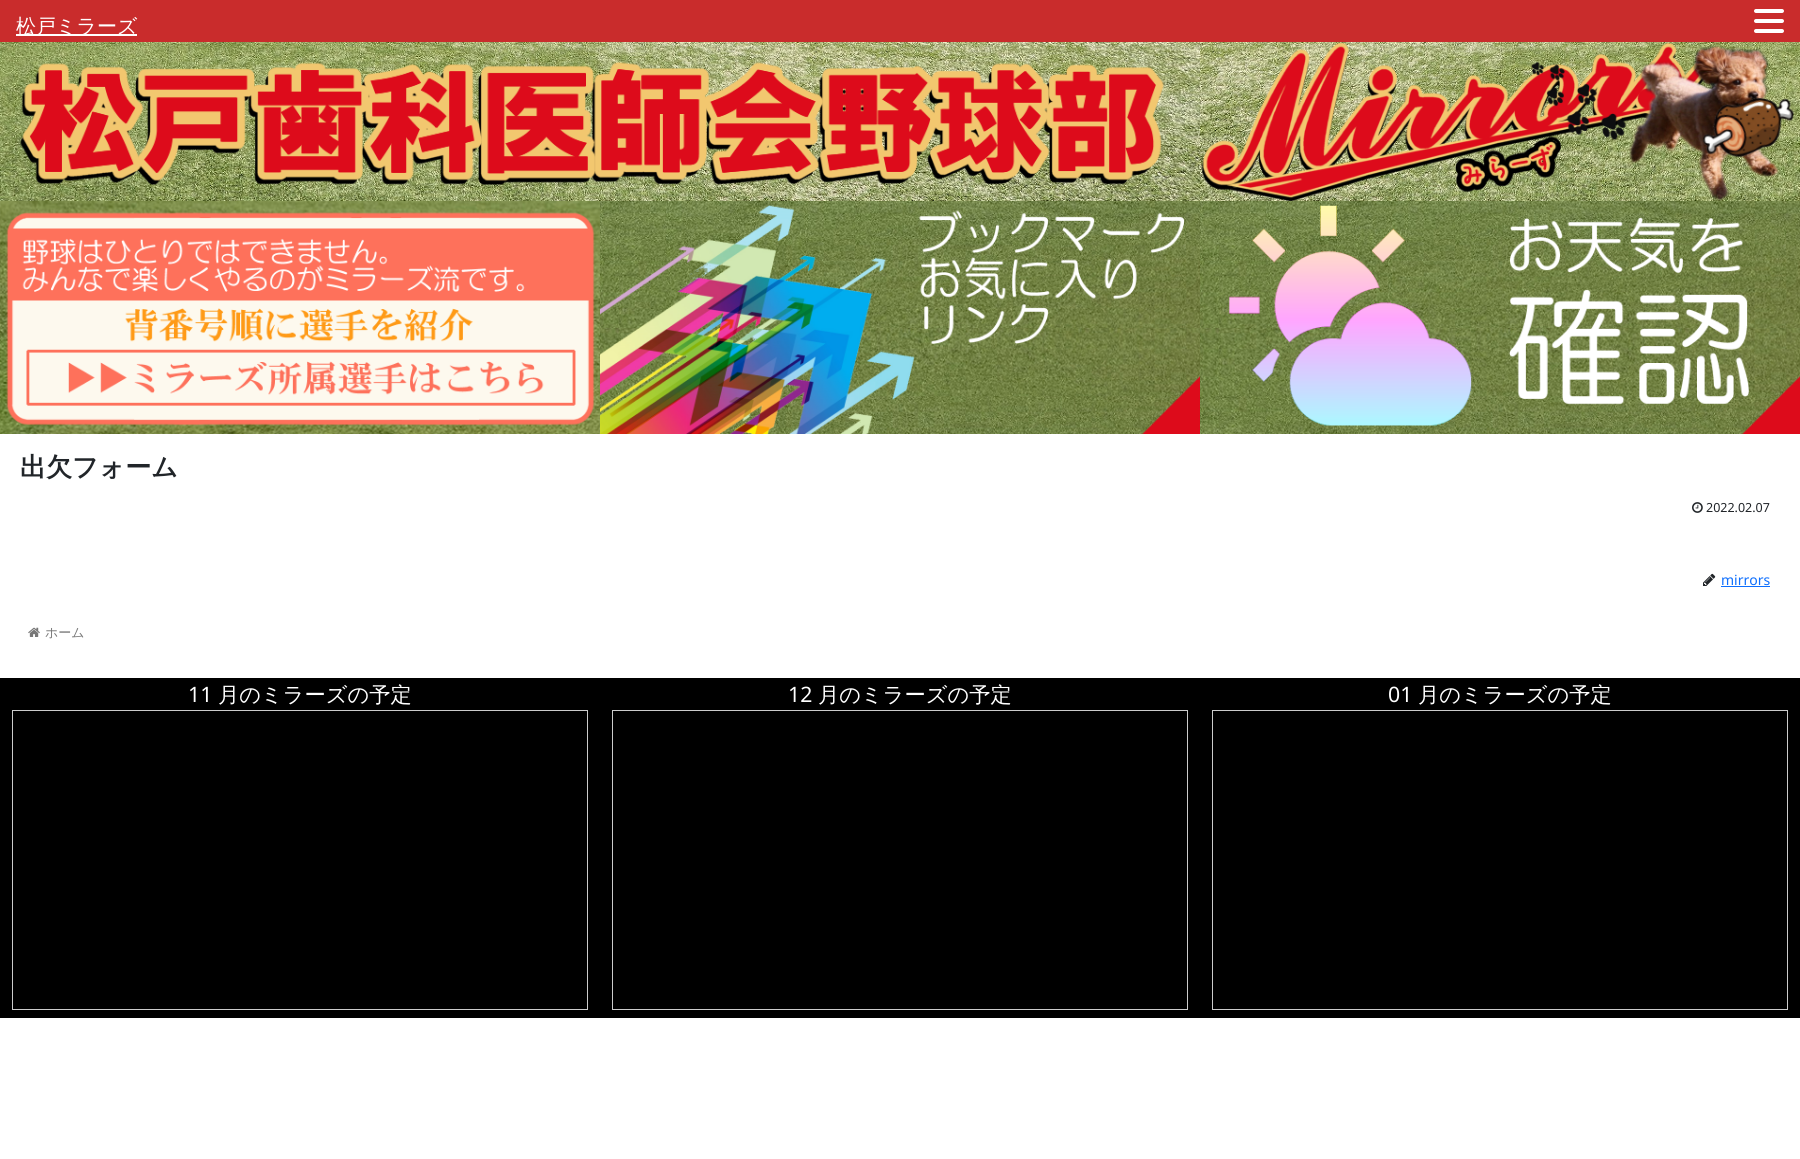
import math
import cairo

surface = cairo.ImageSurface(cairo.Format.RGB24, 1800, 1159)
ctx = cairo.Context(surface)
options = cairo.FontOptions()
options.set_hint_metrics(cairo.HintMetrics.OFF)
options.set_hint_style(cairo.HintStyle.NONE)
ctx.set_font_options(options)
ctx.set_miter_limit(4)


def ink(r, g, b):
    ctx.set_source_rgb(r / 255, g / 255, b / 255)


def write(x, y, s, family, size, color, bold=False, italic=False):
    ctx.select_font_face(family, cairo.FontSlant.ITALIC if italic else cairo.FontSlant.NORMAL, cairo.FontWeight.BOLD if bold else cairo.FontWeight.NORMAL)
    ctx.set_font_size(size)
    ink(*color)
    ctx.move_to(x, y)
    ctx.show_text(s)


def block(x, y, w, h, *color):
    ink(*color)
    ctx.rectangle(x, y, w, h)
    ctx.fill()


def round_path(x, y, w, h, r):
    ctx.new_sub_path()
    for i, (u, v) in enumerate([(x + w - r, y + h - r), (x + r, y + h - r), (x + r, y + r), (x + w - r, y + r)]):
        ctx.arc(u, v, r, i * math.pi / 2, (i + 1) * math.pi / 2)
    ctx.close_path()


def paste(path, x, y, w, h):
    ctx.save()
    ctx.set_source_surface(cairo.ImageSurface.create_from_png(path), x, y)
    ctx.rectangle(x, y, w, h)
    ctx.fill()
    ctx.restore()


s1 = dict(family="WenQuanYi Zen Hei Medium", size=20, color=(255, 255, 255))
s2 = dict(family="WenQuanYi Zen Hei", size=26, color=(33, 37, 41), bold=True)
s3 = dict(family="Noto Sans", size=12.5, color=(33, 37, 41))
s4 = dict(family="Noto Sans", size=14, color=(13, 110, 253))
s5 = dict(family="WenQuanYi Zen Hei Medium", size=13, color=(119, 119, 119))
s6 = dict(family="Noto Sans", size=21.25, color=(255, 255, 255))
s7 = dict(family="WenQuanYi Zen Hei Medium", size=21.25, color=(255, 255, 255))

ink(255, 255, 255)
ctx.paint()
block(0, 0, 1800, 42, 201, 44, 44)
block(16, 34, 121, 2, 255, 255, 255)
write(16, 33, "松戸ミラーズ", **s1)
round_path(1754, 9, 30, 4, 2)
ctx.fill()
round_path(1754, 19, 30, 4, 2)
ctx.fill()
round_path(1754, 29, 30, 4, 2)
ctx.fill()
paste("pic1.png", 0, 42, 1200, 159)
paste("pic2.png", 1200, 42, 600, 159)
paste("pic3.png", 0, 201, 600, 233)
paste("pic4.png", 600, 201, 600, 233)
paste("pic5.png", 1200, 201, 600, 233)
write(20, 476, "出欠フォーム", **s2)
paste("pic6.png", 1692, 502, 11, 11)
write(1706, 512, "2022.02.07", **s3)
paste("pic7.png", 1703, 573, 13, 13)
write(1721, 585, "mirrors", **s4)
block(1721, 586, 49, 1, 13, 110, 253)
paste("pic8.png", 28, 627, 12, 10)
write(45, 637, "ホーム", **s5)
block(0, 678, 1800, 340, 0, 0, 0)
write(188, 702, "11", **s6)
write(218, 702, "月のミラーズの予定", **s7)
ctx.rectangle(12.5, 710.5, 575, 299)
ink(204, 204, 204)
ctx.set_line_width(1)
ctx.stroke()
write(788, 702, "12", **s6)
write(818, 702, "月のミラーズの予定", **s7)
ctx.rectangle(612.5, 710.5, 575, 299)
ink(204, 204, 204)
ctx.stroke()
write(1388, 702, "01", **s6)
write(1418, 702, "月のミラーズの予定", **s7)
ctx.rectangle(1212.5, 710.5, 575, 299)
ink(204, 204, 204)
ctx.stroke()
surface.write_to_png("screenshot.png")
